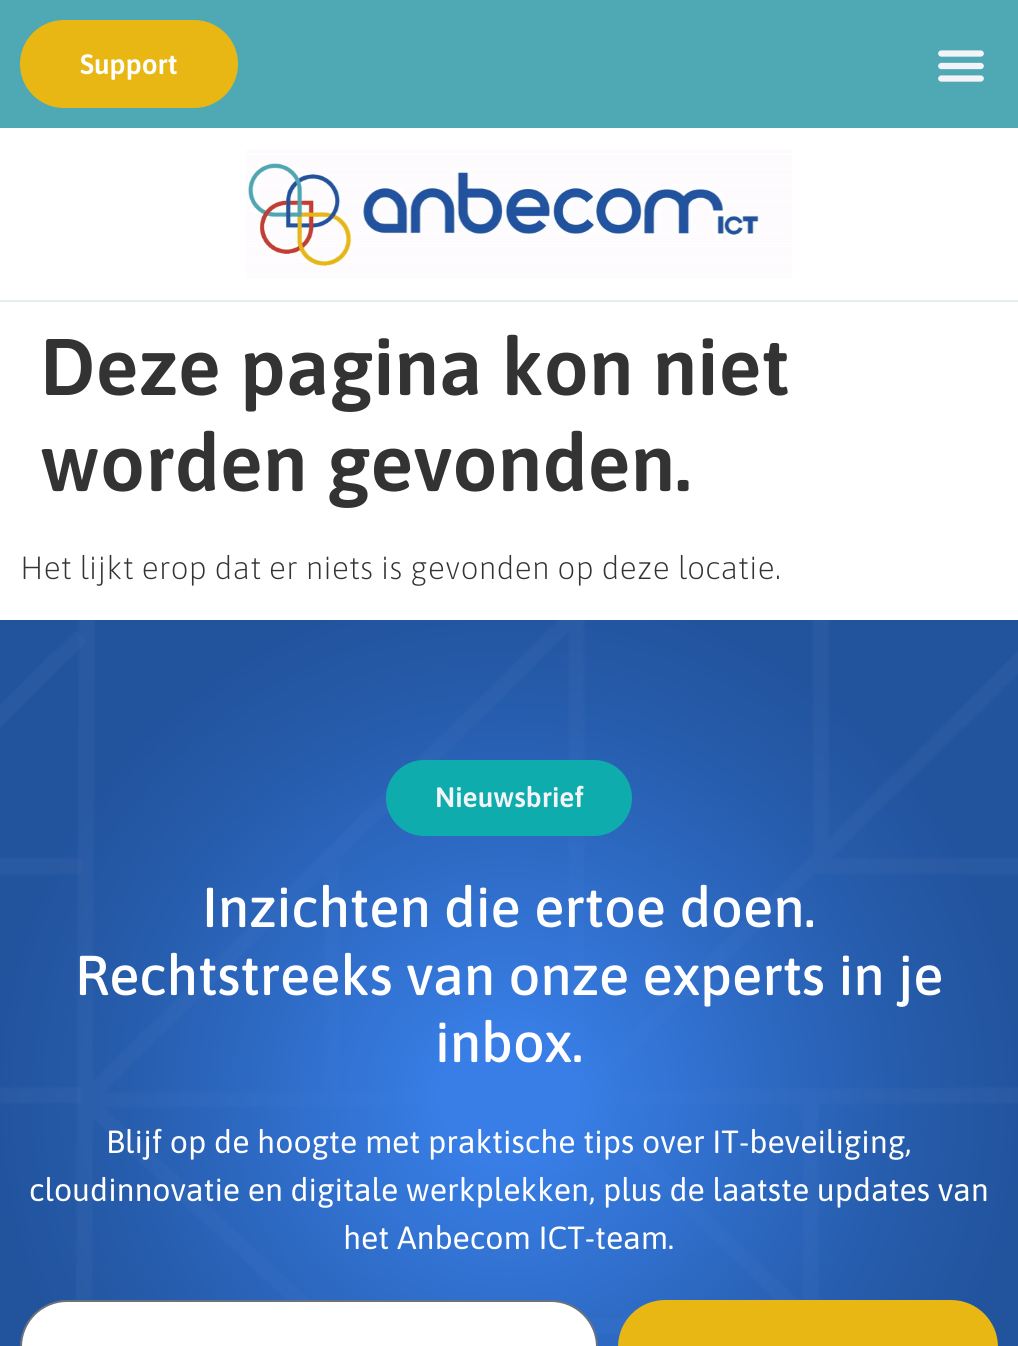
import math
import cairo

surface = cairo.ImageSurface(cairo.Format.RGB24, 1018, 1346)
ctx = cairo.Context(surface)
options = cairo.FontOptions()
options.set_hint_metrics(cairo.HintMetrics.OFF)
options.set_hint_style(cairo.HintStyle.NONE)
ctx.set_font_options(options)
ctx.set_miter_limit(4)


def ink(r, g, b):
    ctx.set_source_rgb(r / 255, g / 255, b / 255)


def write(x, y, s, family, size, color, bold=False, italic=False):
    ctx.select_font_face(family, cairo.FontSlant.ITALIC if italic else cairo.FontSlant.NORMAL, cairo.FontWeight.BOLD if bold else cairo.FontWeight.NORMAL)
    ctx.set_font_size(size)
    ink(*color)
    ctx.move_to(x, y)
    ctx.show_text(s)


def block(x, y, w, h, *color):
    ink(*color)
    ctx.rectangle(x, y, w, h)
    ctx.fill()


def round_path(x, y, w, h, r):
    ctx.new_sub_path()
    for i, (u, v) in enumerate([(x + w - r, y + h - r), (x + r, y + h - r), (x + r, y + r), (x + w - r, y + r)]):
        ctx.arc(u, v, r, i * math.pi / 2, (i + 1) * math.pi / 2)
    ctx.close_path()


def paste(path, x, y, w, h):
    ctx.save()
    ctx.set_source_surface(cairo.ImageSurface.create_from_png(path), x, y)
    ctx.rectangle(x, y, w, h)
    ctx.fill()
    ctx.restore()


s1 = dict(family="Asap SemiBold", size=28, color=(255, 255, 255))
s2 = dict(family="Asap SemiBold", size=80, color=(51, 51, 51))
s3 = dict(family="Asap ExtraLight", size=32, color=(51, 51, 51))
s4 = dict(family="Asap SemiBold", size=28, color=(242, 244, 247))
s5 = dict(family="Asap Medium", size=56, color=(255, 255, 255))
s6 = dict(family="Asap", size=32, color=(255, 255, 255))

ink(255, 255, 255)
ctx.paint()
block(0, 0, 1018, 128, 78, 169, 181)
block(0, 300, 1018, 2, 230, 239, 241)
ink(233, 183, 20)
round_path(20, 20, 218, 88, 44)
ctx.fill()
write(80, 74, "Support", **s1)
paste("pic1.png", 938, 50, 46, 32)
paste("pic2.png", 246, 150, 546, 128)
write(40, 395, "Deze pagina kon niet", **s2)
write(40, 491, "worden gevonden.", **s2)
write(20, 579, "Het lijkt erop dat er niets is gevonden op deze locatie.", **s3)
paste("pic3.png", 0, 620, 1018, 726)
ink(15, 172, 174)
round_path(386, 760, 246, 76, 38)
ctx.fill()
write(435, 807, "Nieuwsbrief", **s4)
write(202, 927, "Inzichten die ertoe doen.", **s5)
write(75, 995, "Rechtstreeks van onze experts in je", **s5)
write(435, 1062, "inbox.", **s5)
write(106, 1153, "Blijf op de hoogte met praktische tips over IT-beveiliging,", **s6)
write(29, 1201, "cloudinnovatie en digitale werkplekken, plus de laatste updates van", **s6)
write(343, 1249, "het Anbecom ICT-team.", **s6)
round_path(21, 1301, 576, 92, 46)
ctx.fill_preserve()
ink(105, 114, 125)
ctx.stroke()
ink(233, 183, 20)
round_path(618, 1300, 380, 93, 47)
ctx.fill()
surface.write_to_png("screenshot.png")
